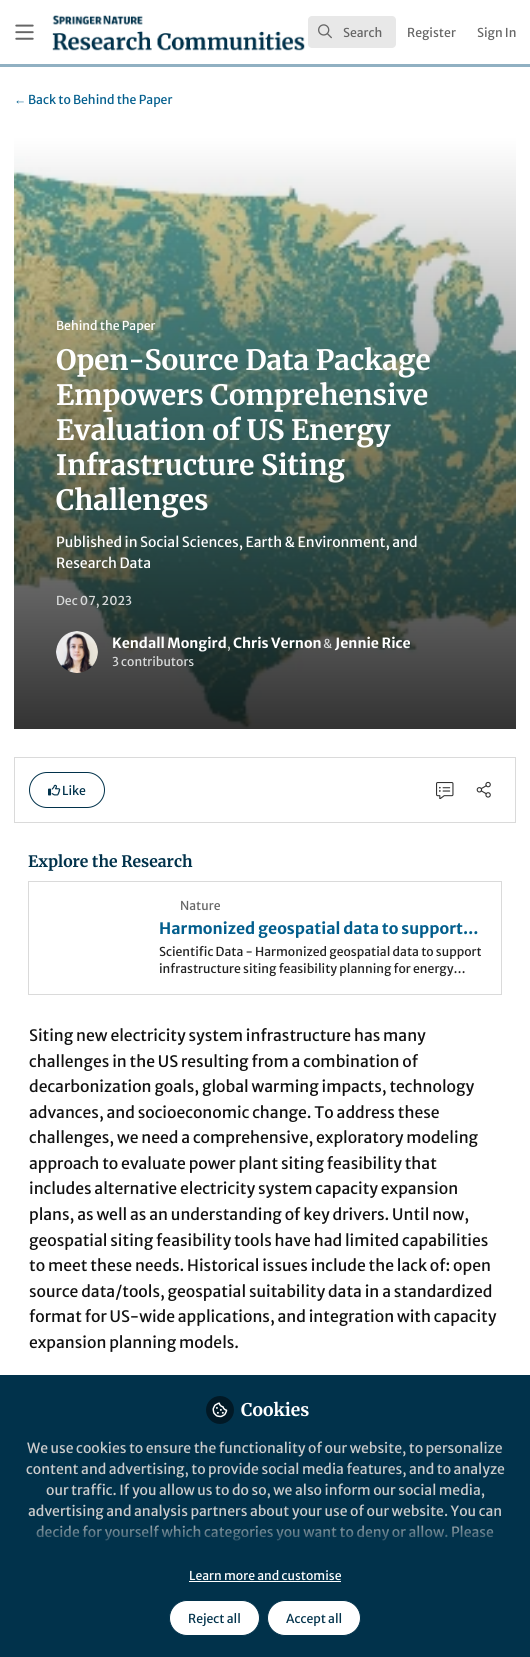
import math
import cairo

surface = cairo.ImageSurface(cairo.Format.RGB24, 530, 1657)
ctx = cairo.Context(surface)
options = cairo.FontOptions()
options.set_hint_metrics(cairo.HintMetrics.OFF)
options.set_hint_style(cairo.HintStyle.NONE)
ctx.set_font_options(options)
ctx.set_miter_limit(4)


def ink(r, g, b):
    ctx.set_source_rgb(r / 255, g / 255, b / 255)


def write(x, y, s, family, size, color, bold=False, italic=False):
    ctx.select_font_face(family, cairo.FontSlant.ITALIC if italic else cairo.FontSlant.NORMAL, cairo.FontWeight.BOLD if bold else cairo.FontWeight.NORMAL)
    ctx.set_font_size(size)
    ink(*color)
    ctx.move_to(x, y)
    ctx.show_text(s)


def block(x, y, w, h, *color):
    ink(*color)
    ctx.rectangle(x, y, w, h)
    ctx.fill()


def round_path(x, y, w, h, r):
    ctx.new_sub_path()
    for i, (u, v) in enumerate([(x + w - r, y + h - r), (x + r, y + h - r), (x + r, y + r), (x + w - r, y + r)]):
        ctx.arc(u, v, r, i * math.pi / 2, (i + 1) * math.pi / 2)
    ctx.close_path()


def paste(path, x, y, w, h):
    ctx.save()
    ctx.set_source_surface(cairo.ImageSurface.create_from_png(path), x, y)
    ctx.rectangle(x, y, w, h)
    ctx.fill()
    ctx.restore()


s1 = dict(family="Merriweather Sans", size=12.25, color=(102, 102, 102))
s2 = dict(family="Liberation Sans", size=12.25, color=(2, 94, 141))
s3 = dict(family="Merriweather Sans", size=12.25, color=(2, 94, 141))
s4 = dict(family="Merriweather Sans", size=12.25, color=(255, 255, 255))
s5 = dict(family="Merriweather", size=28, color=(255, 255, 255), bold=True)
s6 = dict(family="Merriweather Sans", size=14, color=(255, 255, 255))
s7 = dict(family="Merriweather Sans", size=12.25, color=(217, 219, 219))
s8 = dict(family="Merriweather Sans", size=14, color=(255, 255, 255), bold=True)
s9 = dict(family="Merriweather Sans", size=12.25, color=(211, 215, 213))
s10 = dict(family="Merriweather Sans", size=12.25, color=(1, 50, 75))
s11 = dict(family="Merriweather", size=15.75, color=(1, 50, 75), bold=True)
s12 = dict(family="Merriweather Sans", size=15.75, color=(2, 94, 141), bold=True)
s13 = dict(family="Merriweather Sans", size=12.25, color=(34, 34, 34))
s14 = dict(family="Merriweather Sans", size=15.75, color=(17, 17, 17))
s15 = dict(family="Merriweather", size=17.5, color=(255, 255, 255), bold=True)
s16 = dict(family="Merriweather Sans", size=14, color=(204, 204, 204))

ink(255, 255, 255)
ctx.paint()
block(0, 64, 530, 3, 144, 176, 194)
paste("pic1.png", 15, 24, 19, 16)
paste("pic2.png", 52, 15, 253, 36)
ink(232, 232, 232)
round_path(308, 16, 88, 32, 4)
ctx.fill()
paste("pic3.png", 318, 24, 14, 15)
write(343, 37, "Search", **s1)
write(407, 37, "Register", **s1)
write(477, 37, "Sign In", **s1)
write(14, 104, "←", **s2)
write(28, 104, "Back to Behind the Paper", **s3)
paste("pic4.png", 14, 137, 502, 592)
write(56, 330, "Behind the Paper", **s4)
write(56, 370, "Open-Source Data Package", **s5)
write(56, 405, "Empowers Comprehensive", **s5)
write(56, 440, "Evaluation of US Energy", **s5)
write(56, 475, "Infrastructure Siting", **s5)
write(56, 510, "Challenges", **s5)
write(56, 547, "Published in Social Sciences, Earth & Environment, and", **s6)
write(56, 568, "Research Data", **s6)
write(56, 605, "Dec 07, 2023", **s7)
paste("pic5.png", 56, 631, 42, 42)
write(112, 648, "Kendall Mongird", **s8)
write(227, 648, ",", **s9)
write(233, 648, "Chris Vernon", **s8)
write(323, 648, "&", **s7)
write(335, 648, "Jennie Rice", **s8)
write(112, 666, "3 contributors", **s7)
ctx.rectangle(14.5, 757.5, 501, 65)
ink(218, 218, 218)
ctx.set_line_width(1)
ctx.stroke()
round_path(29.5, 772.5, 75, 35, 17.5)
ink(1, 50, 75)
ctx.stroke()
paste("pic6.png", 48, 784, 13, 12)
write(62, 795, "Like", **s10)
paste("pic7.png", 436, 782, 18, 17)
paste("pic8.png", 476, 781, 15, 17)
write(28, 867, "Explore the Research", **s11)
ctx.rectangle(28.5, 881.5, 473, 113)
ink(218, 218, 218)
ctx.stroke()
write(180, 910, "Nature", **s1)
write(159, 934, "Harmonized geospatial data to support…", **s12)
write(159, 956, "Scientific Data - Harmonized geospatial data to support", **s13)
write(159, 973, "infrastructure siting feasibility planning for energy…", **s13)
write(29, 1041, "Siting new electricity system infrastructure has many", **s14)
write(29, 1067, "challenges in the US resulting from a combination of", **s14)
write(29, 1092, "decarbonization goals, global warming impacts, technology", **s14)
write(29, 1118, "advances, and socioeconomic change. To address these", **s14)
write(29, 1143, "challenges, we need a comprehensive, exploratory modeling", **s14)
write(29, 1169, "approach to evaluate power plant siting feasibility that", **s14)
write(29, 1194, "includes alternative electricity system capacity expansion", **s14)
write(29, 1220, "plans, as well as an understanding of key drivers. Until now,", **s14)
write(29, 1246, "geospatial siting feasibility tools have had limited capabilities", **s14)
write(29, 1271, "to meet these needs. Historical issues include the lack of: open", **s14)
write(29, 1297, "source data/tools, geospatial suitability data in a standardized", **s14)
write(29, 1322, "format for US-wide applications, and integration with capacity", **s14)
write(29, 1348, "expansion planning models.", **s14)
block(0, 1375, 530, 282, 1, 50, 75)
ink(1, 25, 38)
ctx.new_path()
ctx.arc(220, 1410, 14, 0, 2 * math.pi)
ctx.fill()
paste("pic9.png", 212, 1402, 16, 16)
write(241, 1416, "Cookies", **s15)
write(27, 1453, "We use cookies to ensure the functionality of our website, to personalize", **s16)
write(26, 1474, "content and advertising, to provide social media features, and to analyze", **s16)
write(46, 1495, "our traffic. If you allow us to do so, we also inform our social media,", **s16)
write(28, 1516, "advertising and analysis partners about your use of our website. You can", **s16)
write(36, 1537, "decide for yourself which categories you want to deny or allow. Please", **s16)
gradient = cairo.LinearGradient(265, 1547, 265, 1519)
gradient.add_color_stop_rgba(0, 0.004, 0.196, 0.294, 1)
gradient.add_color_stop_rgba(1, 0.004, 0.196, 0.294, 0)
ctx.set_source(gradient)
ctx.rectangle(36, 1525, 458, 16)
ctx.fill()
write(189, 1580, "Learn more and customise", **s4)
block(189, 1581, 152, 1, 255, 255, 255)
round_path(169.5, 1600.5, 90, 35, 17.5)
ctx.fill_preserve()
ink(1, 50, 75)
ctx.stroke()
write(188, 1623, "Reject all", **s10)
ink(255, 255, 255)
round_path(267.5, 1600.5, 93, 35, 17.5)
ctx.fill_preserve()
ink(1, 50, 75)
ctx.stroke()
write(286, 1623, "Accept all", **s10)
surface.write_to_png("screenshot.png")
